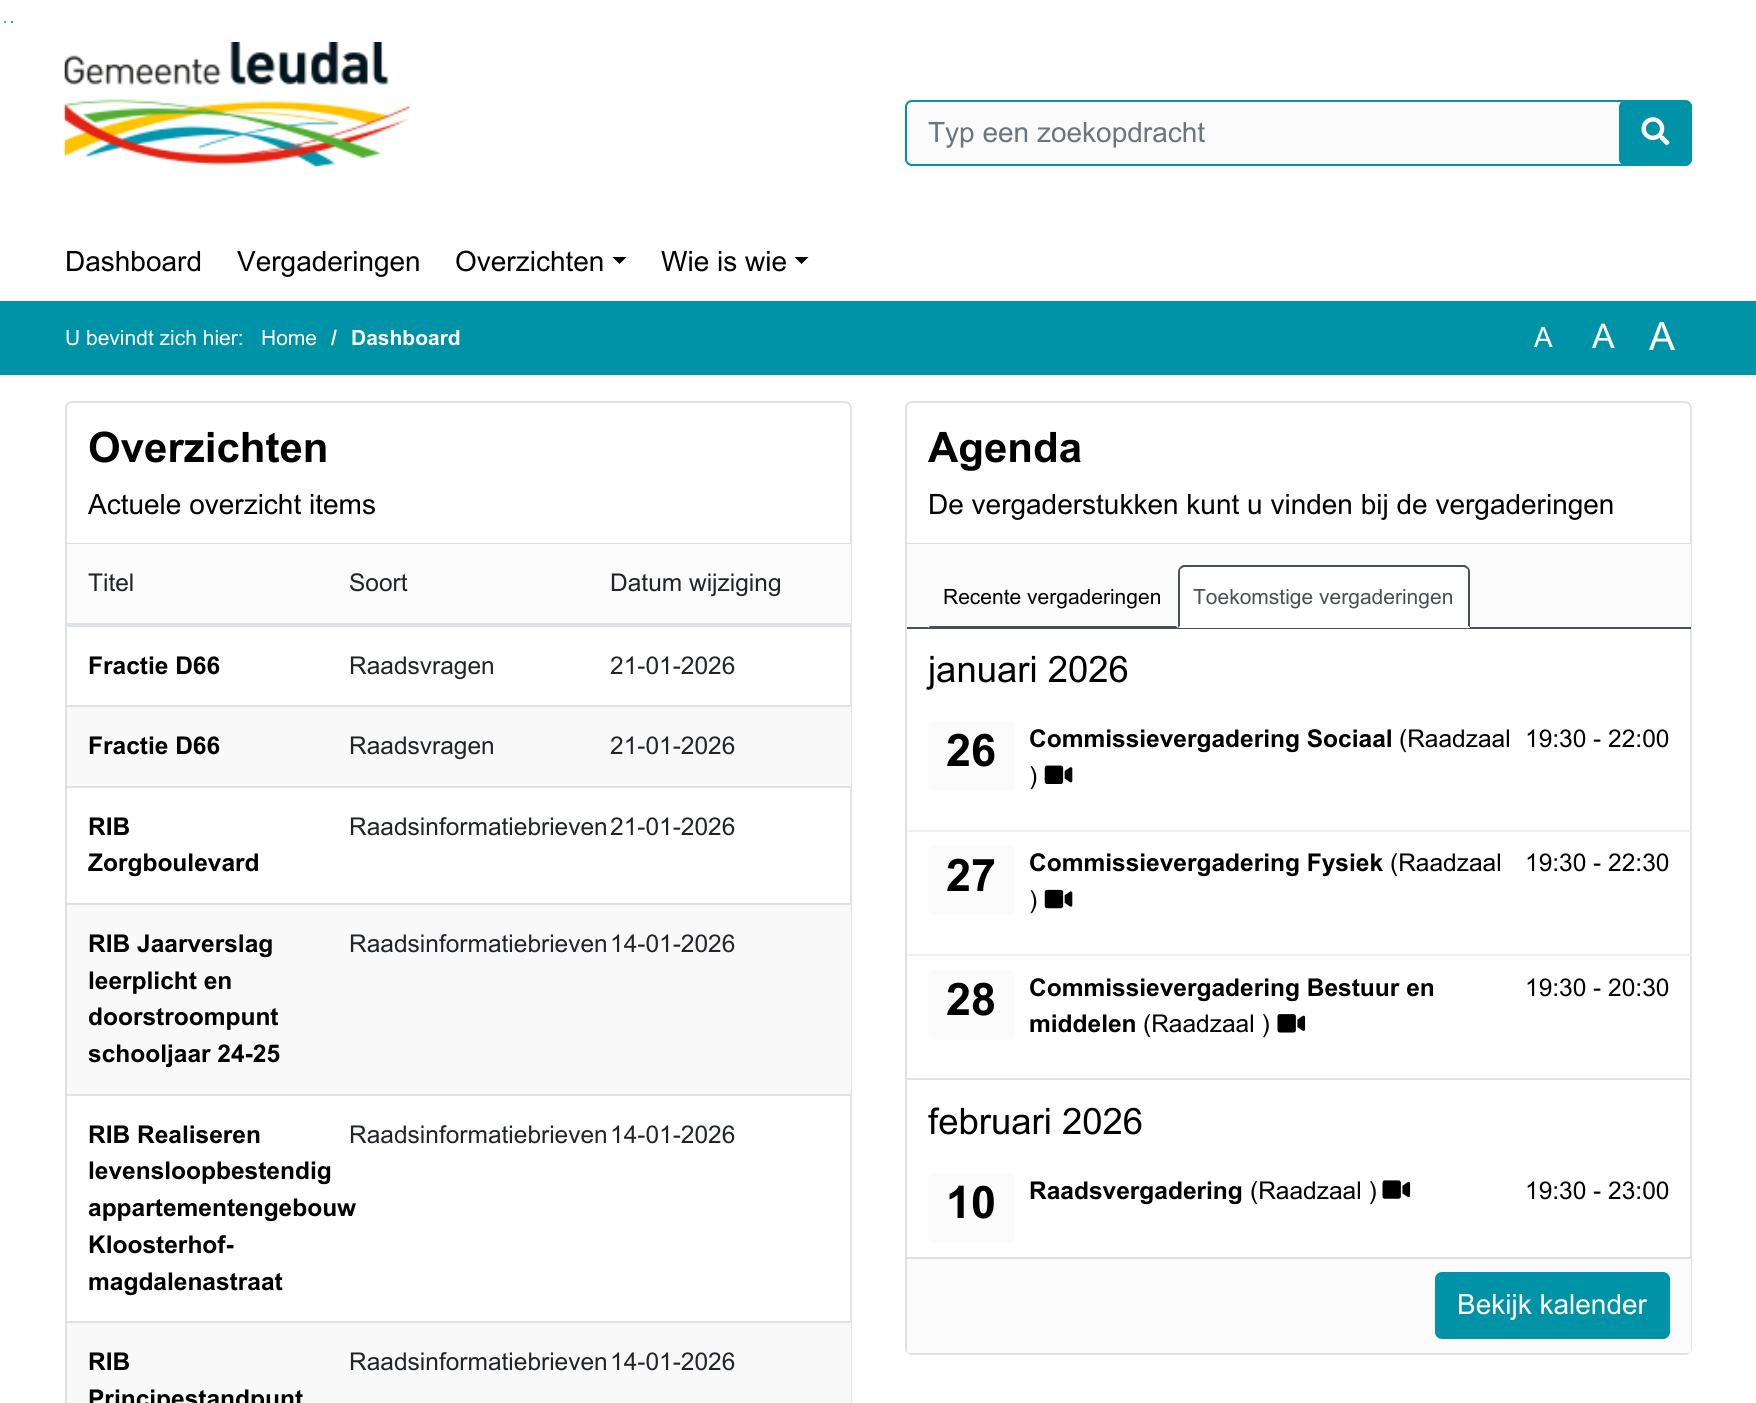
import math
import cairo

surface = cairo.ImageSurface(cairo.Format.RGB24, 1756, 1403)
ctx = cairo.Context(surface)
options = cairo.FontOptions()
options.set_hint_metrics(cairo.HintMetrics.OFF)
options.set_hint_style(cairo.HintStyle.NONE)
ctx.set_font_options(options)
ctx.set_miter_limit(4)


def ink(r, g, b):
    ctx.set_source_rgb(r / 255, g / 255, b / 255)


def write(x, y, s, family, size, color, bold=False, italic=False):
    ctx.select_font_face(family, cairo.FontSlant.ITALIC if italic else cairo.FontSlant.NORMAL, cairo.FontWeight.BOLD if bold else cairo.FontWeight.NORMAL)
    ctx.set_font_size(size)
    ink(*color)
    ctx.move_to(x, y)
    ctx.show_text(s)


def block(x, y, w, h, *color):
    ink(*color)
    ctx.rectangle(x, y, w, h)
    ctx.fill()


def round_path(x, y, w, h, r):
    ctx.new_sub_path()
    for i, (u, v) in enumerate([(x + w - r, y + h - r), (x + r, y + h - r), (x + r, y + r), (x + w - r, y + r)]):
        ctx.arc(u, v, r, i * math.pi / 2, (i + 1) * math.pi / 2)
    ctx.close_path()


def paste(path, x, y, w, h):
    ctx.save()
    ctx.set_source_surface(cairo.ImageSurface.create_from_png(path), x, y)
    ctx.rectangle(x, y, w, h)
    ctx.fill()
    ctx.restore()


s1 = dict(family="Arial", size=28, color=(108, 117, 125))
s2 = dict(family="Arial", size=28, color=(0, 0, 0))
s3 = dict(family="Arial", size=21, color=(255, 255, 255))
s4 = dict(family="Arial", size=21, color=(255, 255, 255), bold=True)
s5 = dict(family="Arial", size=28, color=(255, 255, 255))
s6 = dict(family="Arial", size=34, color=(255, 255, 255))
s7 = dict(family="Arial", size=39, color=(255, 255, 255))
s8 = dict(family="Arial", size=42, color=(0, 0, 0), bold=True)
s9 = dict(family="Arial", size=24.5, color=(33, 37, 41))
s10 = dict(family="Arial", size=24.5, color=(0, 0, 0), bold=True)
s11 = dict(family="Arial", size=21, color=(0, 0, 0))
s12 = dict(family="Arial", size=21, color=(73, 80, 87))
s13 = dict(family="Arial", size=36.5, color=(0, 0, 0))
s14 = dict(family="Arial", size=45, color=(0, 0, 0), bold=True)
s15 = dict(family="Arial", size=24.5, color=(0, 0, 0))

ink(255, 255, 255)
ctx.paint()
ink(0, 147, 167)
ctx.arc(5, 22, 1, 0, 2 * math.pi)
ctx.fill()
ctx.arc(12, 22, 1, 0, 2 * math.pi)
ctx.fill()
paste("pic1.png", 64, 42, 346, 125)
ink(251, 251, 251)
round_path(906, 101, 785, 64, 6)
ctx.fill_preserve()
ink(0, 147, 167)
ctx.stroke()
write(928, 142, "Typ een zoekopdracht", **s1)
ink(0, 147, 167)
round_path(1619, 100, 73, 66, 7)
ctx.fill()
paste("pic2.png", 1641, 117, 29, 29)
write(65, 271, "Dashboard", **s2)
write(237, 271, "Vergaderingen", **s2)
write(455, 271, "Overzichten", **s2)
ctx.new_path()
ctx.move_to(612.5, 257)
ctx.line_to(626.5, 257)
ctx.line_to(619.5, 264)
ctx.close_path()
ctx.fill()
write(661, 271, "Wie is wie", **s2)
ctx.new_path()
ctx.move_to(794.5, 257)
ctx.line_to(808.5, 257)
ctx.line_to(801.5, 264)
ctx.close_path()
ctx.fill()
block(0, 301, 1756, 74, 0, 147, 167)
write(65, 345, "U bevindt zich hier:", **s3)
write(261, 345, "Home", **s3)
write(331, 345, "/", **s4)
write(351, 345, "Dashboard", **s4)
write(1534, 347, "A", **s5)
write(1592, 348, "A", **s6)
write(1649, 350, "A", **s7)
round_path(66, 402, 785, 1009, 6)
ink(222, 226, 230)
ctx.stroke()
write(88, 462, "Overzichten", **s8)
write(88, 514, "Actuele overzicht items", **s2)
block(67, 543, 784, 1, 222, 226, 230)
block(67, 544, 784, 79, 251, 251, 251)
write(88, 591, "Titel", **s9)
write(349, 591, "Soort", **s9)
block(65, 623, 787, 4, 222, 226, 230)
write(610, 591, "Datum wijziging", **s9)
write(88, 674, "Fractie D66", **s10)
write(349, 674, "Raadsvragen", **s9)
write(610, 674, "21-01-2026", **s9)
block(67, 707, 784, 79, 249, 249, 249)
write(88, 754, "Fractie D66", **s10)
write(349, 754, "Raadsvragen", **s9)
block(67, 705, 785, 2, 222, 226, 230)
write(610, 754, "21-01-2026", **s9)
write(88, 835, "RIB", **s10)
write(88, 871, "Zorgboulevard", **s10)
write(349, 835, "Raadsinformatiebrieven", **s9)
block(67, 786, 785, 2, 222, 226, 230)
write(610, 835, "21-01-2026", **s9)
block(67, 905, 784, 189, 249, 249, 249)
write(88, 952, "RIB Jaarverslag", **s10)
write(88, 989, "leerplicht en", **s10)
write(88, 1025, "doorstroompunt", **s10)
write(88, 1062, "schooljaar 24-25", **s10)
write(349, 952, "Raadsinformatiebrieven", **s9)
block(67, 903, 785, 2, 222, 226, 230)
write(610, 952, "14-01-2026", **s9)
write(88, 1143, "RIB Realiseren", **s10)
write(88, 1179, "levensloopbestendig", **s10)
write(88, 1216, "appartementengebouw", **s10)
write(88, 1253, "Kloosterhof-", **s10)
write(88, 1290, "magdalenastraat", **s10)
write(349, 1143, "Raadsinformatiebrieven", **s9)
block(67, 1094, 785, 2, 222, 226, 230)
write(610, 1143, "14-01-2026", **s9)
block(67, 1323, 784, 80, 249, 249, 249)
write(88, 1370, "RIB", **s10)
write(88, 1407, "Principestandpunt", **s10)
write(349, 1370, "Raadsinformatiebrieven", **s9)
block(67, 1321, 785, 2, 222, 226, 230)
write(610, 1370, "14-01-2026", **s9)
round_path(906, 402, 785, 952, 6)
ink(222, 226, 230)
ctx.stroke()
write(928, 462, "Agenda", **s8)
write(928, 514, "De vergaderstukken kunt u vinden bij de vergaderingen", **s2)
block(907, 543, 784, 1, 222, 226, 230)
block(907, 544, 784, 83, 251, 251, 251)
block(907, 627, 784, 2, 73, 80, 87)
ink(251, 251, 251)
ctx.new_path()
ctx.move_to(935, 565)
ctx.line_to(1171, 565)
ctx.curve_to(1175, 565, 1178, 568, 1178, 572)
ctx.line_to(1178, 628)
ctx.line_to(928, 628)
ctx.line_to(928, 572)
ctx.curve_to(928, 568, 931, 565, 935, 565)
ctx.close_path()
ctx.fill()
ink(73, 80, 87)
ctx.new_path()
ctx.move_to(1178, 628)
ctx.line_to(928, 628)
ctx.line_to(930, 626)
ctx.line_to(1176, 626)
ctx.close_path()
ctx.fill()
write(943, 604, "Recente vergaderingen", **s11)
ink(255, 255, 255)
ctx.new_path()
ctx.move_to(1185, 565)
ctx.line_to(1463, 565)
ctx.curve_to(1467, 565, 1470, 568, 1470, 572)
ctx.line_to(1470, 628)
ctx.line_to(1178, 628)
ctx.line_to(1178, 572)
ctx.curve_to(1178, 568, 1181, 565, 1185, 565)
ctx.close_path()
ctx.fill()
ink(73, 80, 87)
ctx.new_path()
ctx.move_to(1185, 567)
ctx.curve_to(1183, 567, 1182, 568, 1181, 569)
ctx.line_to(1180, 567)
ctx.line_to(1183, 565)
ctx.line_to(1465, 565)
ctx.line_to(1468, 567)
ctx.line_to(1467, 569)
ctx.curve_to(1466, 568, 1465, 567, 1463, 567)
ctx.close_path()
ctx.fill()
ctx.new_path()
ctx.move_to(1470, 628)
ctx.line_to(1470, 572)
ctx.curve_to(1470, 570, 1469, 568, 1468, 567)
ctx.line_to(1467, 569)
ctx.curve_to(1468, 569, 1468, 571, 1468, 572)
ctx.line_to(1468, 626)
ctx.close_path()
ctx.fill()
ink(255, 255, 255)
ctx.new_path()
ctx.move_to(1470, 628)
ctx.line_to(1178, 628)
ctx.line_to(1180, 626)
ctx.line_to(1468, 626)
ctx.close_path()
ctx.fill()
ink(73, 80, 87)
ctx.new_path()
ctx.move_to(1178, 628)
ctx.line_to(1180, 626)
ctx.line_to(1180, 572)
ctx.curve_to(1180, 571, 1180, 569, 1181, 569)
ctx.line_to(1180, 567)
ctx.curve_to(1179, 568, 1178, 570, 1178, 572)
ctx.close_path()
ctx.fill()
write(1193, 604, "Toekomstige vergaderingen", **s12)
block(907, 1078, 784, 2, 222, 226, 230)
write(928, 682, "januari 2026", **s13)
block(907, 830, 784, 2, 238, 240, 242)
ink(251, 251, 251)
round_path(928, 721, 87, 70, 5)
ctx.fill()
write(946, 766, "26", **s14)
write(1029, 747, "Commissievergadering Sociaal", **s10)
write(1399, 747, "(Raadzaal", **s15)
write(1029, 784, ")", **s15)
paste("pic3.png", 1044, 765, 29, 19)
write(1525, 747, "19:30 - 22:00", **s15)
block(907, 954, 784, 2, 238, 240, 242)
ink(251, 251, 251)
round_path(928, 845, 87, 70, 5)
ctx.fill()
write(946, 891, "27", **s14)
write(1029, 871, "Commissievergadering Fysiek", **s10)
write(1390, 871, "(Raadzaal", **s15)
write(1029, 908, ")", **s15)
paste("pic4.png", 1044, 889, 29, 20)
write(1525, 871, "19:30 - 22:30", **s15)
ink(251, 251, 251)
round_path(928, 970, 87, 70, 5)
ctx.fill()
write(946, 1015, "28", **s14)
write(1029, 996, "Commissievergadering Bestuur en", **s10)
write(1029, 1032, "middelen", **s10)
write(1143, 1032, "(Raadzaal )", **s15)
paste("pic5.png", 1277, 1014, 29, 19)
write(1525, 996, "19:30 - 20:30", **s15)
write(928, 1134, "februari 2026", **s13)
ink(251, 251, 251)
round_path(928, 1173, 87, 70, 5)
ctx.fill()
write(946, 1218, "10", **s14)
write(1029, 1199, "Raadsvergadering", **s10)
write(1250, 1199, "(Raadzaal )", **s15)
paste("pic6.png", 1382, 1180, 29, 19)
write(1525, 1199, "19:30 - 23:00", **s15)
block(907, 1259, 784, 94, 251, 251, 251)
block(907, 1257, 784, 2, 222, 226, 230)
ink(0, 147, 167)
round_path(1436, 1273, 233, 65, 6)
ctx.fill_preserve()
ctx.stroke()
write(1457, 1314, "Bekijk kalender", **s5)
surface.write_to_png("screenshot.png")
